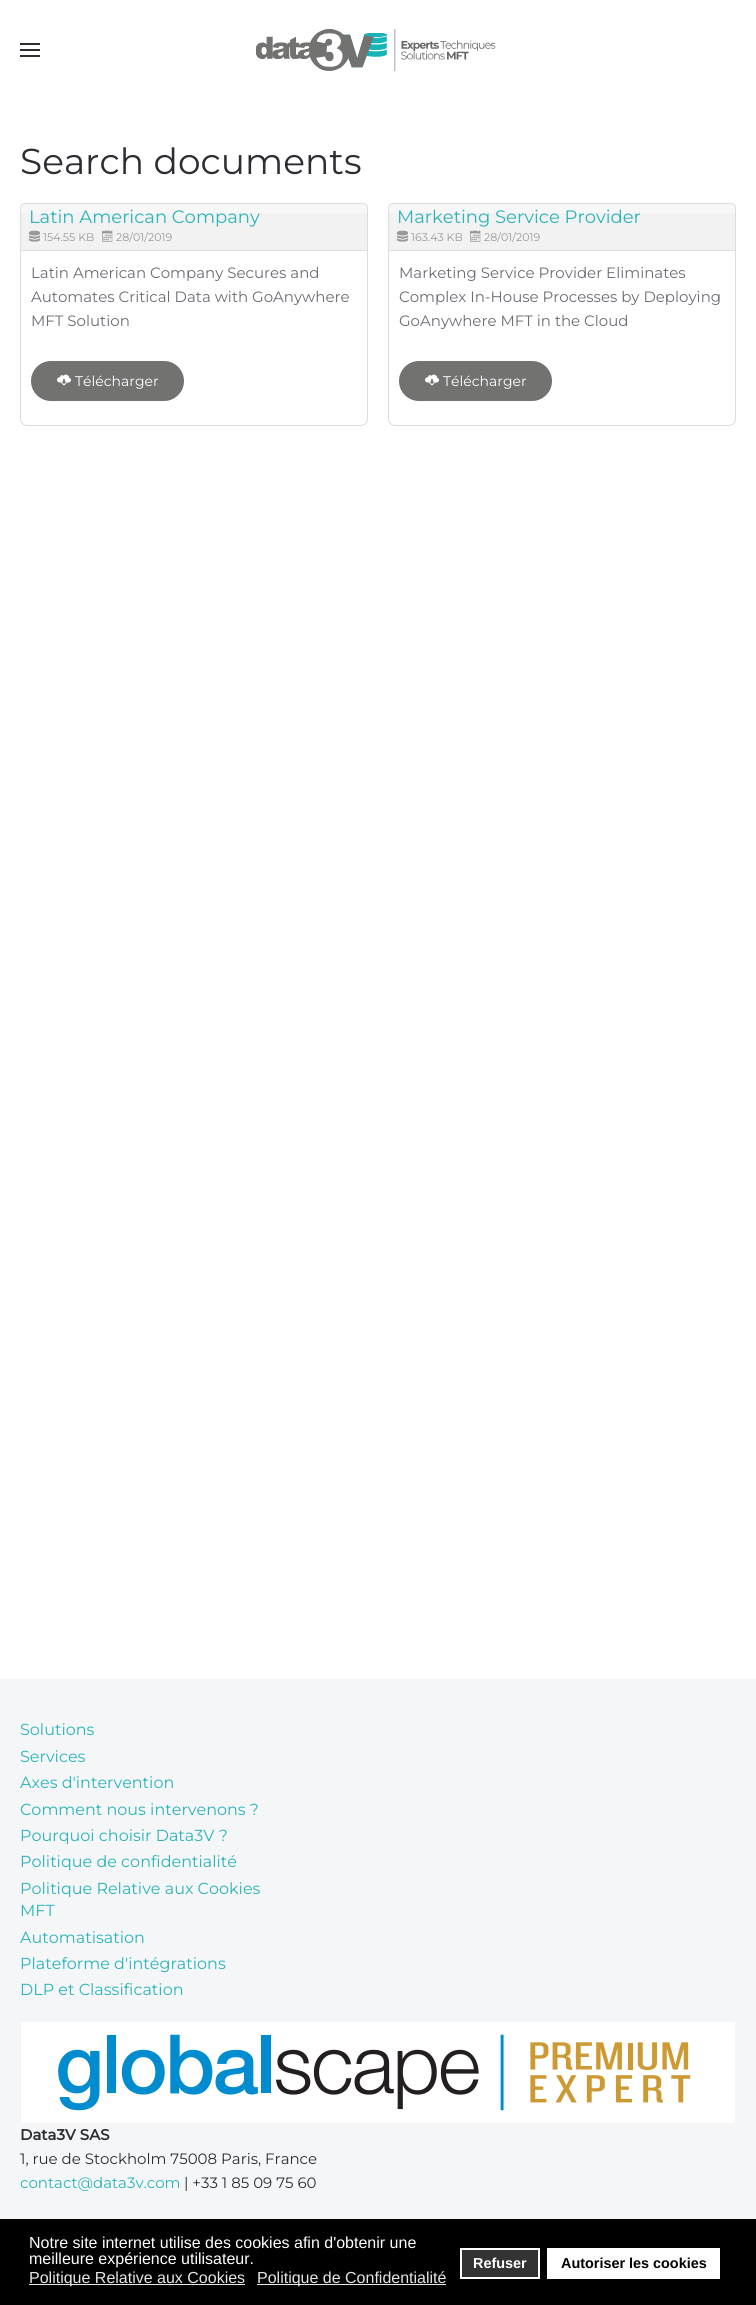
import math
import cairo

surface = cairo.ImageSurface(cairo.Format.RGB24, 756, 2305)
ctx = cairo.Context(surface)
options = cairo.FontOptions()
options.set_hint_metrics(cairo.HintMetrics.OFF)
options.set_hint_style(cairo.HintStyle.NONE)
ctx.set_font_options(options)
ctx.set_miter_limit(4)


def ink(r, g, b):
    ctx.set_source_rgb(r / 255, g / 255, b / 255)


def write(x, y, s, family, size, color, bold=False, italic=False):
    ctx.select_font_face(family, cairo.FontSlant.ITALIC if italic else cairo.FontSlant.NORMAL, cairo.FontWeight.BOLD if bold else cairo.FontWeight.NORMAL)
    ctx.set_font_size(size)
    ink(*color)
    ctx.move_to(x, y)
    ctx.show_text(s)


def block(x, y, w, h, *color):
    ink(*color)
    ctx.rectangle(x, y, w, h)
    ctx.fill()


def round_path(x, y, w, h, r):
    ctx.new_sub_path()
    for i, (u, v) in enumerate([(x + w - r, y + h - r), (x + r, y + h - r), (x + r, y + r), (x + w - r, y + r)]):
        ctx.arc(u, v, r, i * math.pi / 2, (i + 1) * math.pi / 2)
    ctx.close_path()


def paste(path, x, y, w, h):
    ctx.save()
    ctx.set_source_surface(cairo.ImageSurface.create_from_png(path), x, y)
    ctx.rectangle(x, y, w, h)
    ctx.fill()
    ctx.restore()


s1 = dict(family="Montserrat Thin", size=36, color=(45, 46, 51))
s2 = dict(family="Montserrat Thin", size=18, color=(44, 180, 185))
s3 = dict(family="Montserrat Thin", size=11, color=(153, 153, 153))
s4 = dict(family="Montserrat Thin", size=15, color=(108, 109, 116))
s5 = dict(family="Montserrat Thin", size=14, color=(255, 255, 255))
s6 = dict(family="Montserrat Thin", size=16, color=(44, 180, 185))
s7 = dict(family="Montserrat", size=15, color=(45, 46, 51), bold=True)
s8 = dict(family="Montserrat Thin", size=15, color=(45, 46, 51))
s9 = dict(family="Montserrat Thin", size=15, color=(44, 180, 185))
s10 = dict(family="Liberation Sans", size=16, color=(255, 255, 255))
s11 = dict(family="Liberation Sans", size=16, color=(230, 230, 230))
s12 = dict(family="Liberation Sans", size=14.4, color=(255, 255, 255), bold=True)
s13 = dict(family="Liberation Sans", size=14.4, color=(0, 0, 0), bold=True)

ink(255, 255, 255)
ctx.paint()
block(20, 43, 20, 2, 45, 46, 51)
block(20, 49, 20, 2, 45, 46, 51)
block(20, 55, 20, 2, 45, 46, 51)
paste("pic1.png", 256, 29, 240, 42)
write(20, 174, "Search documents", **s1)
ink(242, 242, 242)
ctx.new_path()
ctx.move_to(25, 203)
ctx.line_to(363, 203)
ctx.curve_to(366, 203, 368, 205, 368, 208)
ctx.line_to(368, 251)
ctx.line_to(20, 251)
ctx.line_to(20, 208)
ctx.curve_to(20, 205, 22, 203, 25, 203)
ctx.close_path()
ctx.fill()
block(20, 204, 348, 9, 247, 247, 247)
ctx.new_path()
ctx.move_to(25, 203.5)
ctx.line_to(363, 203.5)
ctx.curve_to(365.5, 203.5, 367.5, 205.5, 367.5, 208)
ctx.line_to(367.5, 250.5)
ctx.line_to(20.5, 250.5)
ctx.line_to(20.5, 208)
ctx.curve_to(20.5, 205.5, 22.5, 203.5, 25, 203.5)
ctx.close_path()
ink(219, 222, 225)
ctx.set_line_width(1)
ctx.stroke()
write(29, 223, "Latin American Company", **s2)
paste("pic2.png", 29, 230, 11, 12)
write(43, 241, "154.55 KB", **s3)
paste("pic3.png", 102, 230, 11, 12)
write(116, 241, "28/01/2019", **s3)
ink(219, 222, 225)
ctx.set_fill_rule(cairo.FillRule.EVEN_ODD)
ctx.new_path()
ctx.move_to(20, 251)
ctx.line_to(368, 251)
ctx.line_to(368, 419)
ctx.curve_to(368, 423, 365, 426, 361, 426)
ctx.line_to(27, 426)
ctx.curve_to(23, 426, 20, 423, 20, 419)
ctx.close_path()
ctx.move_to(21, 251)
ctx.line_to(367, 251)
ctx.line_to(367, 419)
ctx.curve_to(367, 422, 364, 425, 361, 425)
ctx.line_to(27, 425)
ctx.curve_to(24, 425, 21, 422, 21, 419)
ctx.close_path()
ctx.fill()
write(31, 278, "Latin American Company Secures and", **s4)
write(31, 302, "Automates Critical Data with GoAnywhere", **s4)
write(31, 326, "MFT Solution", **s4)
ink(114, 114, 113)
round_path(31, 361, 153, 40, 20)
ctx.fill()
paste("pic4.png", 57, 374, 14, 12)
write(75, 386, "Télécharger", **s5)
ink(242, 242, 242)
ctx.new_path()
ctx.move_to(393, 203)
ctx.line_to(731, 203)
ctx.curve_to(734, 203, 736, 205, 736, 208)
ctx.line_to(736, 251)
ctx.line_to(388, 251)
ctx.line_to(388, 208)
ctx.curve_to(388, 205, 390, 203, 393, 203)
ctx.close_path()
ctx.fill()
block(388, 204, 348, 9, 247, 247, 247)
ctx.new_path()
ctx.move_to(393, 203.5)
ctx.line_to(731, 203.5)
ctx.curve_to(733.5, 203.5, 735.5, 205.5, 735.5, 208)
ctx.line_to(735.5, 250.5)
ctx.line_to(388.5, 250.5)
ctx.line_to(388.5, 208)
ctx.curve_to(388.5, 205.5, 390.5, 203.5, 393, 203.5)
ctx.close_path()
ink(219, 222, 225)
ctx.stroke()
write(397, 223, "Marketing Service Provider", **s2)
paste("pic2.png", 397, 230, 11, 12)
write(411, 241, "163.43 KB", **s3)
paste("pic3.png", 470, 230, 11, 12)
write(484, 241, "28/01/2019", **s3)
ink(219, 222, 225)
ctx.new_path()
ctx.move_to(388, 251)
ctx.line_to(736, 251)
ctx.line_to(736, 419)
ctx.curve_to(736, 423, 733, 426, 729, 426)
ctx.line_to(395, 426)
ctx.curve_to(391, 426, 388, 423, 388, 419)
ctx.close_path()
ctx.move_to(389, 251)
ctx.line_to(735, 251)
ctx.line_to(735, 419)
ctx.curve_to(735, 422, 732, 425, 729, 425)
ctx.line_to(395, 425)
ctx.curve_to(392, 425, 389, 422, 389, 419)
ctx.close_path()
ctx.fill()
write(399, 278, "Marketing Service Provider Eliminates", **s4)
write(399, 302, "Complex In-House Processes by Deploying", **s4)
write(399, 326, "GoAnywhere MFT in the Cloud", **s4)
ink(114, 114, 113)
round_path(399, 361, 153, 40, 20)
ctx.fill()
paste("pic4.png", 425, 374, 14, 12)
write(443, 386, "Télécharger", **s5)
block(0, 1679, 756, 540, 245, 246, 248)
write(20, 1735, "Solutions", **s6)
write(20, 1762, "Services", **s6)
write(20, 1788, "Axes d'intervention", **s6)
write(20, 1815, "Comment nous intervenons ?", **s6)
write(20, 1841, "Pourquoi choisir Data3V ?", **s6)
write(20, 1867, "Politique de confidentialité", **s6)
write(20, 1894, "Politique Relative aux Cookies", **s6)
write(20, 1916, "MFT", **s6)
write(20, 1943, "Automatisation", **s6)
write(20, 1969, "Plateforme d'intégrations", **s6)
write(20, 1995, "DLP et Classification", **s6)
paste("pic5.png", 21, 2022, 714, 101)
write(20, 2140, "Data3V SAS", **s7)
write(20, 2164, "1, rue de Stockholm 75008 Paris, France", **s8)
write(20, 2188, "contact@data3v.com", **s9)
write(184, 2188, "| +33 1 85 09 75 60", **s8)
block(0, 2219, 756, 86, 0, 0, 0)
write(29, 2248, "Notre site internet utilise des cookies afin d'obtenir une", **s10)
write(29, 2264, "meilleure expérience utilisateur.", **s10)
block(29, 2284, 216, 1, 230, 230, 230)
write(29, 2283, "Politique Relative aux Cookies", **s11)
block(257, 2284, 189, 1, 230, 230, 230)
write(257, 2283, "Politique de Confidentialité", **s11)
ink(51, 51, 51)
ctx.rectangle(461, 2249, 78, 29)
ctx.fill_preserve()
ink(255, 255, 255)
ctx.set_line_width(2)
ctx.stroke()
write(473, 2268, "Refuser", **s12)
block(547, 2248, 173, 31, 255, 255, 255)
write(561, 2268, "Autoriser les cookies", **s13)
surface.write_to_png("screenshot.png")
